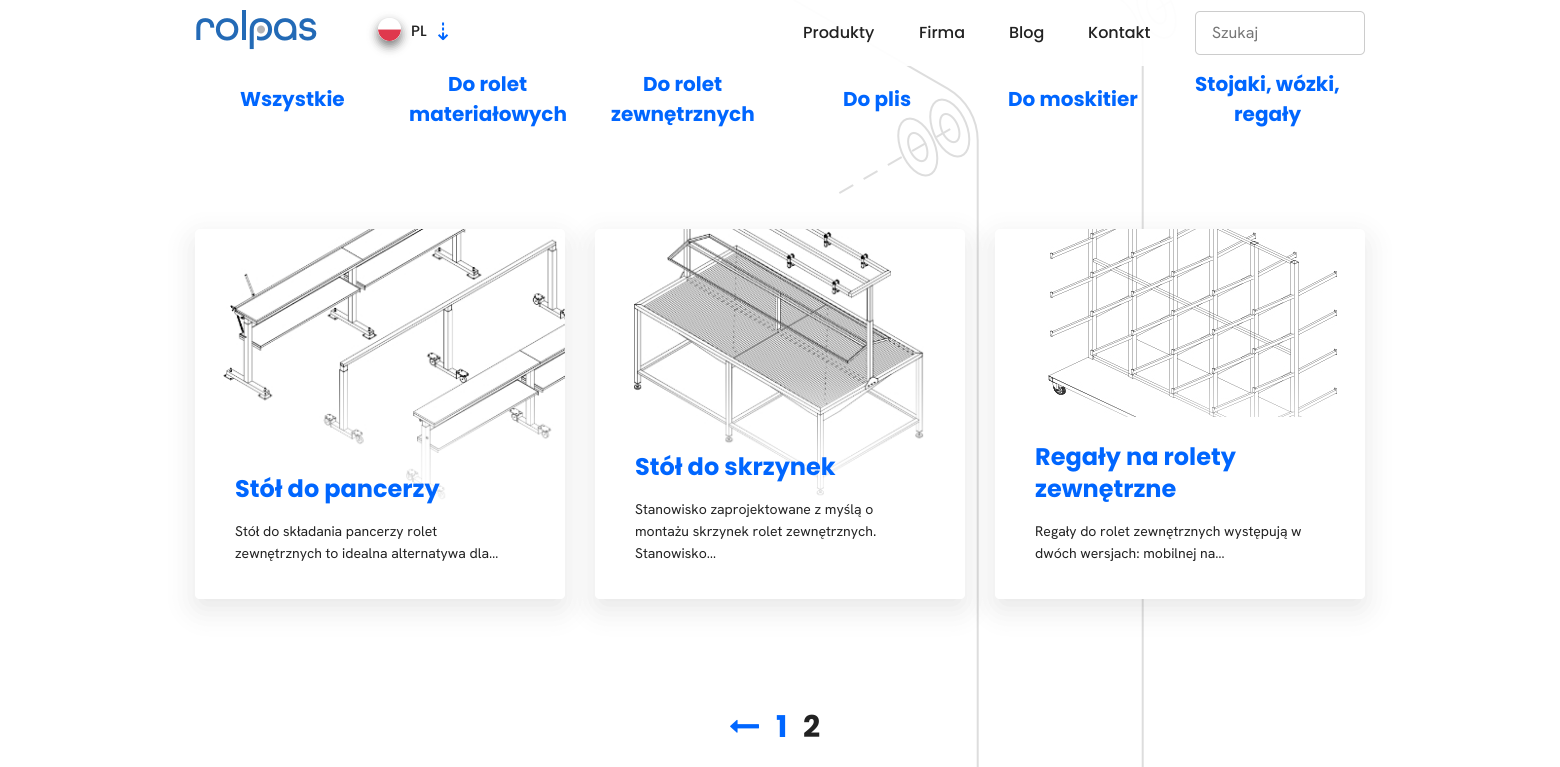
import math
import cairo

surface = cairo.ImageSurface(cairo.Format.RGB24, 1560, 767)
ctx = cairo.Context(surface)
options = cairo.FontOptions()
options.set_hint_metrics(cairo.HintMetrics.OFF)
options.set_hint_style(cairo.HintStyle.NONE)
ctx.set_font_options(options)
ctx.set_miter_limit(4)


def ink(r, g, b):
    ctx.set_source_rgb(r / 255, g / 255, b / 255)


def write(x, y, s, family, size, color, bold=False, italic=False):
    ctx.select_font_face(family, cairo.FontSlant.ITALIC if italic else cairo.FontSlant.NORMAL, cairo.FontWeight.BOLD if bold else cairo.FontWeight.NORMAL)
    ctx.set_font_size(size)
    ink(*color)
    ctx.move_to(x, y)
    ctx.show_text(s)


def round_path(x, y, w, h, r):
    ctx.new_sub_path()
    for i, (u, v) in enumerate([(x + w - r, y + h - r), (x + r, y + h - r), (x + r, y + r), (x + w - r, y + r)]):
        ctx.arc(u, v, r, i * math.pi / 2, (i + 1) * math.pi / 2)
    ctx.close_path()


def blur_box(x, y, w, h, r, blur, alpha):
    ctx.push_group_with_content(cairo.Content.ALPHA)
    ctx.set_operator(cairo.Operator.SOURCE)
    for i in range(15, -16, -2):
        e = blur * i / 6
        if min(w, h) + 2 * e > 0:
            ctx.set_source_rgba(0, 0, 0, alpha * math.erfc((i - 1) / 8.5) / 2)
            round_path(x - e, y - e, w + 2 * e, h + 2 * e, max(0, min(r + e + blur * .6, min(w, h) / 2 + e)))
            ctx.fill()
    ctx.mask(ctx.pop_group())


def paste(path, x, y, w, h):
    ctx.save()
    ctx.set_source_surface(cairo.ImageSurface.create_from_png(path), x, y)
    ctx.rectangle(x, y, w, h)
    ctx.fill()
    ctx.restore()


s1 = dict(family="Poppins Medium", size=15, color=(34, 34, 34))
s2 = dict(family="DejaVu Sans", size=24, color=(0, 102, 255))
s3 = dict(family="Poppins Medium", size=16, color=(34, 34, 34))
s4 = dict(family="Hanken Grotesk", size=16, color=(117, 117, 117))
s5 = dict(family="Poppins", size=20, color=(0, 102, 255), bold=True)
s6 = dict(family="Poppins", size=24, color=(0, 102, 255), bold=True)
s7 = dict(family="Hanken Grotesk", size=14, color=(34, 34, 34))
s8 = dict(family="Poppins", size=30, color=(0, 102, 255), bold=True)
s9 = dict(family="Poppins", size=30, color=(34, 34, 34), bold=True)

ink(255, 255, 255)
ctx.paint()
paste("pic1.png", 792, 0, 385, 767)
ctx.set_source_rgba(1, 1, 1, 0.95)
ctx.rectangle(792, 0, 385, 66)
ctx.fill()
paste("pic2.png", 196, 10, 121, 40)
ctx.save()
ctx.set_fill_rule(cairo.FillRule.EVEN_ODD)
ctx.new_path()
ctx.move_to(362, 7)
ctx.line_to(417, 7)
ctx.line_to(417, 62)
ctx.line_to(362, 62)
ctx.close_path()
ctx.move_to(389.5, 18)
ctx.curve_to(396, 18, 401, 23, 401, 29.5)
ctx.curve_to(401, 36, 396, 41, 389.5, 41)
ctx.curve_to(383, 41, 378, 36, 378, 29.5)
ctx.curve_to(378, 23, 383, 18, 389.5, 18)
ctx.close_path()
ctx.clip()
ink(0, 0, 0)
blur_box(378, 23, 23, 23, 11.5, 5, 0.5)
ctx.restore()
paste("pic3.png", 378, 26, 23, 15)
write(411, 36, "PL", **s1)
write(433, 40, "⇣", **s2)
write(803, 38, "Produkty", **s3)
write(919, 38, "Firma", **s3)
write(1009, 38, "Blog", **s3)
write(1088, 38, "Kontakt", **s3)
round_path(1195.5, 11.5, 169, 43, 4.5)
ink(204, 204, 204)
ctx.set_line_width(1)
ctx.stroke()
write(1212, 38, "Szukaj", **s4)
write(240, 106, "Wszystkie", **s5)
write(448, 91, "Do rolet", **s5)
write(409, 121, "materiałowych", **s5)
write(643, 91, "Do rolet", **s5)
write(611, 121, "zewnętrznych", **s5)
write(843, 106, "Do plis", **s5)
write(1008, 106, "Do moskitier", **s5)
write(1195, 91, "Stojaki, wózki,", **s5)
write(1234, 121, "regały", **s5)
ink(0, 0, 0)
blur_box(195, 239, 370, 370, 5, 15, 0.1)
ink(255, 255, 255)
round_path(195, 229, 370, 370, 5)
ctx.fill()
paste("pic4.png", 223, 229, 342, 271)
gradient = cairo.LinearGradient(380, 599, 380, 229)
gradient.add_color_stop_rgba(0, 1, 1, 1, 1)
gradient.add_color_stop_rgba(0.2, 1, 1, 1, 1)
gradient.add_color_stop_rgba(0.4, 1, 1, 1, 0.7)
gradient.add_color_stop_rgba(0.6, 1, 1, 1, 0)
gradient.add_color_stop_rgba(0.8, 1, 1, 1, 0)
ctx.set_source(gradient)
round_path(195, 229, 370, 370, 5)
ctx.fill()
write(235, 497, "Stół do pancerzy", **s6)
write(235, 536, "Stół do składania pancerzy rolet", **s7)
write(235, 558, "zewnętrznych to idealna alternatywa dla…", **s7)
ink(0, 0, 0)
blur_box(595, 239, 370, 370, 5, 15, 0.1)
ink(255, 255, 255)
round_path(595, 229, 370, 370, 5)
ctx.fill()
paste("pic5.png", 634, 229, 290, 267)
gradient = cairo.LinearGradient(780, 599, 780, 229)
gradient.add_color_stop_rgba(0, 1, 1, 1, 1)
gradient.add_color_stop_rgba(0.2, 1, 1, 1, 1)
gradient.add_color_stop_rgba(0.4, 1, 1, 1, 0.7)
gradient.add_color_stop_rgba(0.6, 1, 1, 1, 0)
gradient.add_color_stop_rgba(0.8, 1, 1, 1, 0)
ctx.set_source(gradient)
round_path(595, 229, 370, 370, 5)
ctx.fill()
write(635, 475, "Stół do skrzynek", **s6)
write(635, 514, "Stanowisko zaprojektowane z myślą o", **s7)
write(635, 536, "montażu skrzynek rolet zewnętrznych.", **s7)
write(635, 558, "Stanowisko…", **s7)
ink(0, 0, 0)
blur_box(995, 239, 370, 370, 5, 15, 0.1)
ink(255, 255, 255)
round_path(995, 229, 370, 370, 5)
ctx.fill()
paste("pic6.png", 1048, 229, 289, 188)
gradient = cairo.LinearGradient(1180, 599, 1180, 229)
gradient.add_color_stop_rgba(0, 1, 1, 1, 1)
gradient.add_color_stop_rgba(0.2, 1, 1, 1, 1)
gradient.add_color_stop_rgba(0.4, 1, 1, 1, 0.7)
gradient.add_color_stop_rgba(0.6, 1, 1, 1, 0)
gradient.add_color_stop_rgba(0.8, 1, 1, 1, 0)
ctx.set_source(gradient)
round_path(995, 229, 370, 370, 5)
ctx.fill()
write(1035, 465, "Regały na rolety", **s6)
write(1035, 497, "zewnętrzne", **s6)
write(1035, 536, "Regały do rolet zewnętrznych występują w", **s7)
write(1035, 558, "dwóch wersjach: mobilnej na…", **s7)
paste("pic7.png", 730, 719, 29, 14)
write(776, 737, "1", **s8)
write(803, 737, "2", **s9)
surface.write_to_png("screenshot.png")
